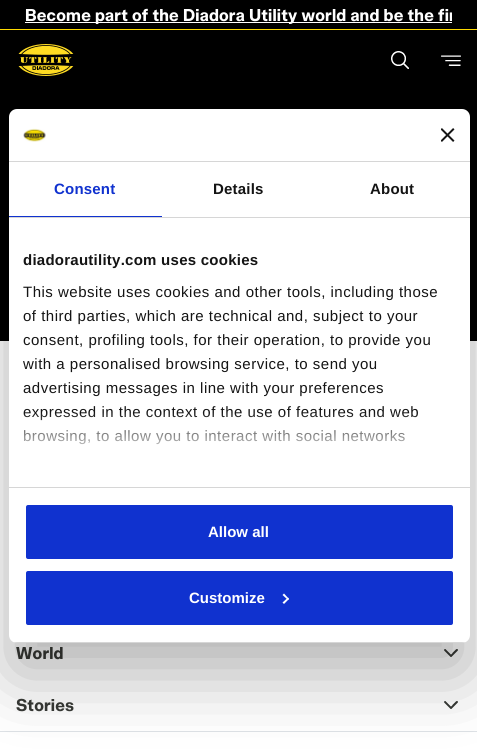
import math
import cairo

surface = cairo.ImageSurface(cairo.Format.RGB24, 477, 751)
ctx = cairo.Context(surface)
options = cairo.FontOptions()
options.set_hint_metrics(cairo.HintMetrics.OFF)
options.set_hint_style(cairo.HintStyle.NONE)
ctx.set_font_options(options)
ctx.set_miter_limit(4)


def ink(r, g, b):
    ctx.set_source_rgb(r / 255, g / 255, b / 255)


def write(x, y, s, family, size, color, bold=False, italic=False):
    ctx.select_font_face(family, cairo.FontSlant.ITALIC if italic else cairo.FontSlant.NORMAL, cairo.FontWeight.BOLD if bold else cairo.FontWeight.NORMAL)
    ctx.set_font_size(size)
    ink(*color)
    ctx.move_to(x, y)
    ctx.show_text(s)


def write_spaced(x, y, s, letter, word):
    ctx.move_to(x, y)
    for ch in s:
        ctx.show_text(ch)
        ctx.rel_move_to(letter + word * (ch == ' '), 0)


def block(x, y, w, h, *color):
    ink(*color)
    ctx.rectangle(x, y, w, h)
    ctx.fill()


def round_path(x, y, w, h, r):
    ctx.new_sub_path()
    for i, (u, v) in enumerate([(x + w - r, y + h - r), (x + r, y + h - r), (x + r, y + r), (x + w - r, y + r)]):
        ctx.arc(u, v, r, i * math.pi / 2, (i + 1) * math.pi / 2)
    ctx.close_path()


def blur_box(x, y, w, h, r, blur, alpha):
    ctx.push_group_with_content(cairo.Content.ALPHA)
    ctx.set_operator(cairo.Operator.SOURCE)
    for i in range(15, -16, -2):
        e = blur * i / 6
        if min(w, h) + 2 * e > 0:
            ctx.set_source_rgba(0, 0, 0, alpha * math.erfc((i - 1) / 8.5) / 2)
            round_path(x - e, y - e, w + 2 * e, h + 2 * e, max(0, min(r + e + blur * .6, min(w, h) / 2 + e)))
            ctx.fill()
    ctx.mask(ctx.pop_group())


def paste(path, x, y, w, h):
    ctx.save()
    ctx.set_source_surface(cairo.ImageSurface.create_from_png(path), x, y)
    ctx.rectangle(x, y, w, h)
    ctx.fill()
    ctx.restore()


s1 = dict(family="Liberation Sans", size=15, color=(255, 255, 255), bold=True)

ink(255, 255, 255)
ctx.paint()
block(0, 0, 477, 341, 0, 0, 0)
block(0, 29, 477, 1, 255, 219, 1)
block(25, 22, 427, 1, 255, 255, 255)
ctx.save()
ctx.rectangle(25, 0, 427, 29)
ctx.clip()
ctx.select_font_face("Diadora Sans", cairo.FontSlant.NORMAL, cairo.FontWeight.BOLD)
ctx.set_font_size(16)
write_spaced(25, 21, "Become part of the Diadora Utility world and be the fir", 0.2, 0)
ctx.restore()
paste("pic1.png", 18, 44, 56, 32)
paste("pic2.png", 391, 51, 18, 18)
paste("pic3.png", 441, 55, 20, 11)
block(0, 731, 477, 1, 222, 226, 230)
ctx.select_font_face("Diadora Sans", cairo.FontSlant.NORMAL, cairo.FontWeight.BOLD)
ctx.set_font_size(16)
ink(55, 57, 53)
write_spaced(16, 659, "World", 0.2, 0)
paste("pic4.png", 444, 649, 14, 8)
write_spaced(16, 711, "Stories", 0.2, 0)
paste("pic4.png", 444, 701, 14, 8)
ink(0, 0, 0)
blur_box(9, 141, 461, 534, 8, 34, 0.3)
ink(255, 255, 255)
round_path(9, 109, 461, 534, 8)
ctx.fill()
block(9, 161, 461, 1, 214, 214, 214)
paste("pic5.png", 23, 128, 23, 14)
paste("pic6.png", 441, 128, 14, 14)
block(9, 217, 461, 1, 214, 214, 214)
block(9, 216, 153, 1, 16, 50, 207)
ctx.select_font_face("Liberation Sans", cairo.FontSlant.NORMAL, cairo.FontWeight.BOLD)
ctx.set_font_size(15)
write_spaced(54, 194, "Consent", 0.2, 0)
ink(20, 20, 20)
write_spaced(213, 194, "Details", 0.2, 0)
write_spaced(370, 194, "About", 0.2, 0)
block(9, 487, 461, 1, 214, 214, 214)
ink(20, 20, 20)
write_spaced(23, 265, "diadorautility.com uses cookies", 0.25, 0)
ctx.select_font_face("Liberation Sans")
write_spaced(23, 297, "This website uses cookies and other tools, including those", 0.5, 0)
write_spaced(23, 321, "of third parties, which are technical and, subject to your", 0.5, 0)
write_spaced(23, 345, "consent, profiling tools, for their operation, to provide you", 0.5, 0)
write_spaced(23, 369, "with a personalised browsing service, to send you", 0.5, 0)
write_spaced(23, 393, "advertising messages in line with your preferences", 0.5, 0)
write_spaced(23, 417, "expressed in the context of the use of features and web", 0.5, 0)
write_spaced(23, 441, "browsing, to allow you to interact with social networks", 0.5, 0)
gradient = cairo.LinearGradient(233, 487, 233, 412)
gradient.add_color_stop_rgba(0, 1, 1, 1, 1)
gradient.add_color_stop_rgba(0.5, 1, 1, 1, 0.8)
gradient.add_color_stop_rgba(1, 1, 1, 1, 0)
ctx.set_source(gradient)
ctx.rectangle(23, 413, 395, 32)
ctx.fill()
ctx.save()
round_path(9, 109, 461, 534, 8)
ctx.clip()
block(9, 642, 461, 1, 214, 214, 214)
ctx.restore()
ink(16, 50, 207)
round_path(25, 504, 429, 56, 3)
ctx.fill_preserve()
ink(255, 255, 255)
ctx.stroke()
write(208, 537, "Allow all", **s1)
ink(16, 50, 207)
round_path(25, 570, 429, 56, 3)
ctx.fill_preserve()
ink(255, 255, 255)
ctx.stroke()
write(189, 603, "Customize", **s1)
ctx.new_path()
ctx.move_to(284, 593.5)
ctx.line_to(289, 599)
ctx.line_to(288, 600)
ctx.line_to(282.5, 595)
ctx.close_path()
ctx.fill()
ctx.new_path()
ctx.move_to(288, 597.5)
ctx.line_to(289, 599)
ctx.line_to(284, 604)
ctx.line_to(282.5, 602.5)
ctx.close_path()
ctx.fill()
surface.write_to_png("screenshot.png")
